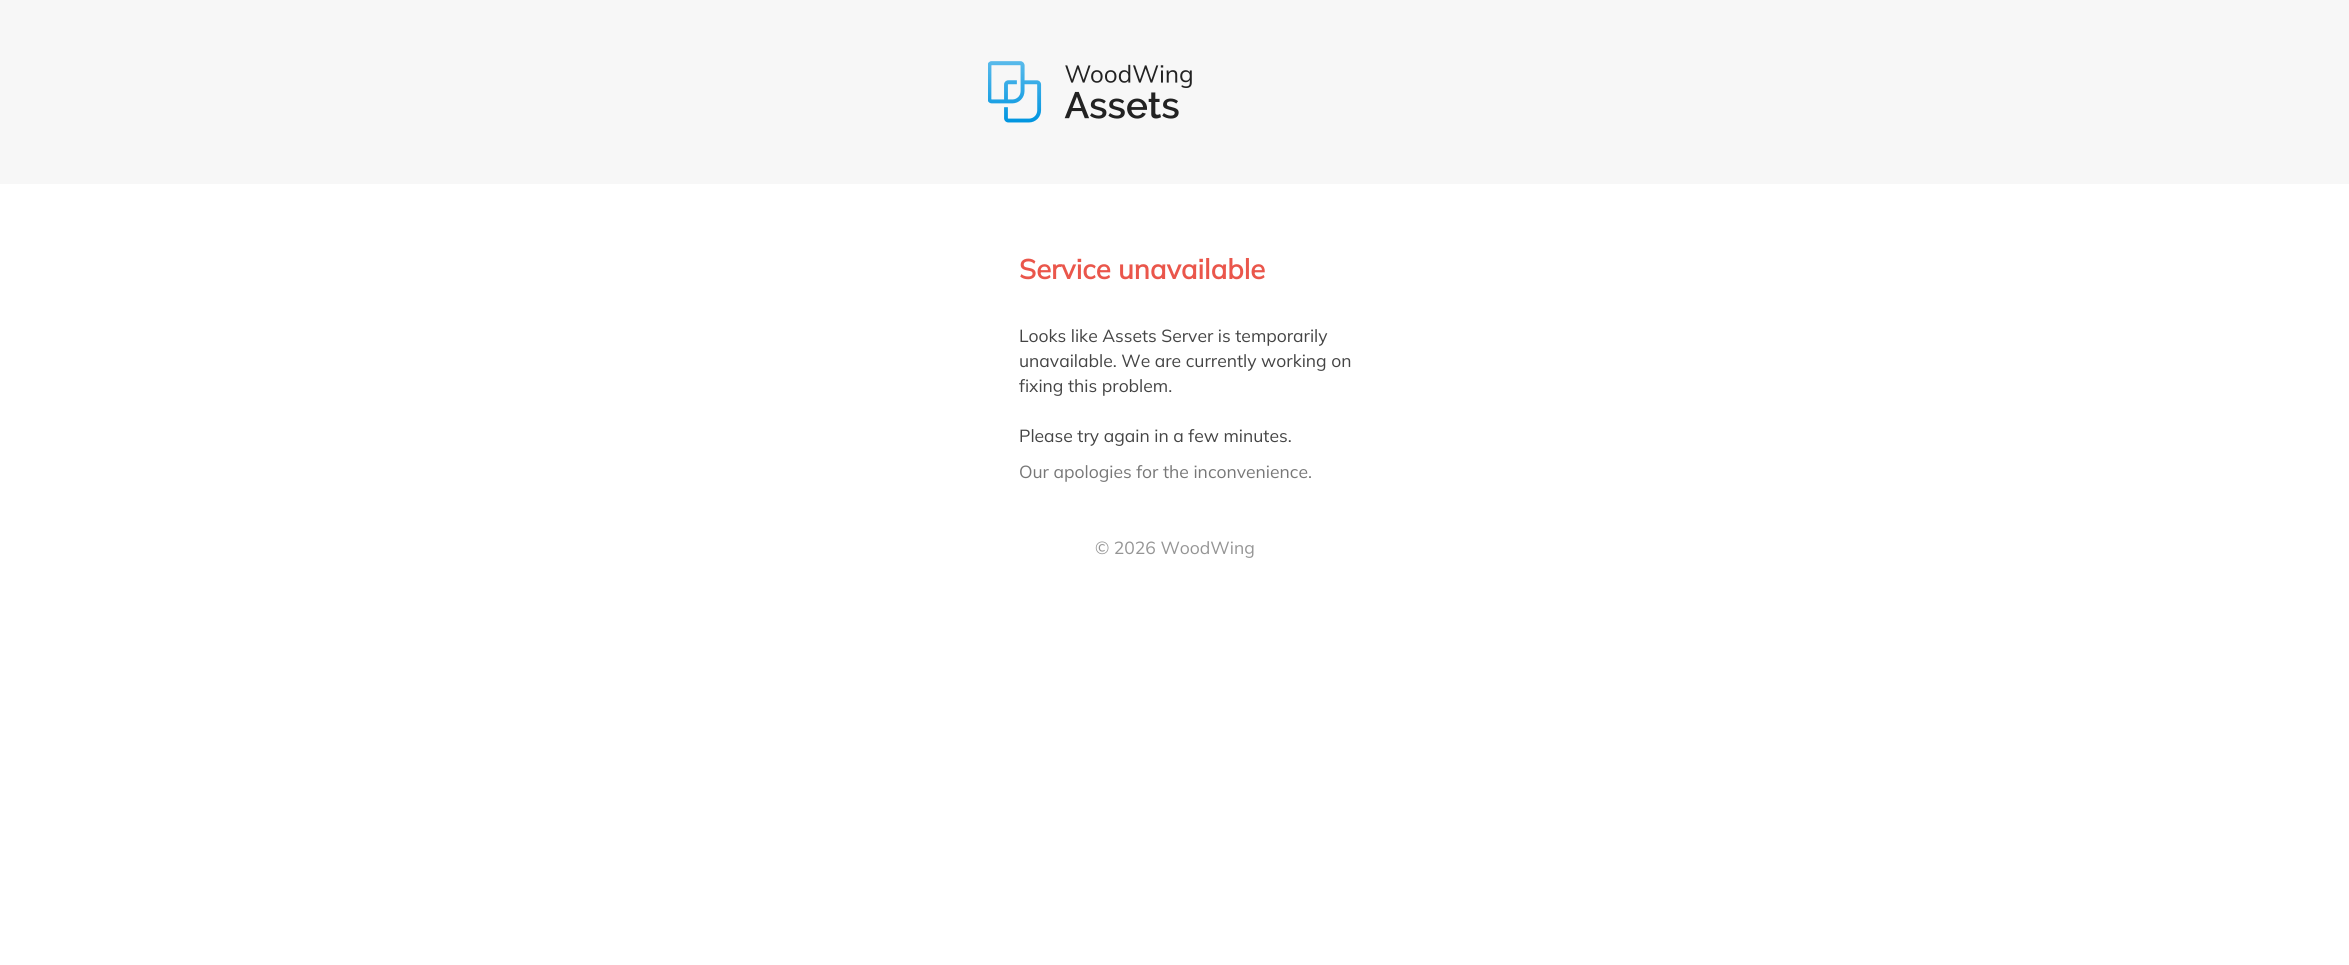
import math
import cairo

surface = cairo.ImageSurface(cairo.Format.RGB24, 2349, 965)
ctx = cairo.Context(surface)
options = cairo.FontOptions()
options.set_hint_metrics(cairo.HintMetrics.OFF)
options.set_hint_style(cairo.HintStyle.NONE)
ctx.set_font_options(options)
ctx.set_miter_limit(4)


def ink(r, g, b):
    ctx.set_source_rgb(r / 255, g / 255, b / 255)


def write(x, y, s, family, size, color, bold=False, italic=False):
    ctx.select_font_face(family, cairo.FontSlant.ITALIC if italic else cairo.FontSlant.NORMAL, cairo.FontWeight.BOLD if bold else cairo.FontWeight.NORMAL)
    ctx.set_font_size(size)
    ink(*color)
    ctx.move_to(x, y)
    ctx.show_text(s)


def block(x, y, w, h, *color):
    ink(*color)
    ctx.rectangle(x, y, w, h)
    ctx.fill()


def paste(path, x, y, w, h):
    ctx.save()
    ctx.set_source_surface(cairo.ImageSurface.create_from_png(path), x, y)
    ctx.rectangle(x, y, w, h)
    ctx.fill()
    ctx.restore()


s1 = dict(family="Mulish", size=27.5, color=(234, 86, 75), bold=True)
s2 = dict(family="Mulish", size=17.5, color=(68, 68, 68))
s3 = dict(family="Mulish", size=17.5, color=(119, 119, 119))
s4 = dict(family="Mulish", size=17.5, color=(149, 149, 149))

ink(255, 255, 255)
ctx.paint()
block(0, 0, 2349, 184, 247, 247, 247)
paste("pic1.png", 988, 61, 204, 62)
write(1019, 279, "Service unavailable", **s1)
write(1019, 342, "Looks like Assets Server is temporarily", **s2)
write(1019, 367, "unavailable. We are currently working on", **s2)
write(1019, 392, "fixing this problem.", **s2)
write(1019, 442, "Please try again in a few minutes.", **s2)
write(1019, 478, "Our apologies for the inconvenience.", **s3)
write(1095, 554, "© 2026 WoodWing", **s4)
surface.write_to_png("screenshot.png")
